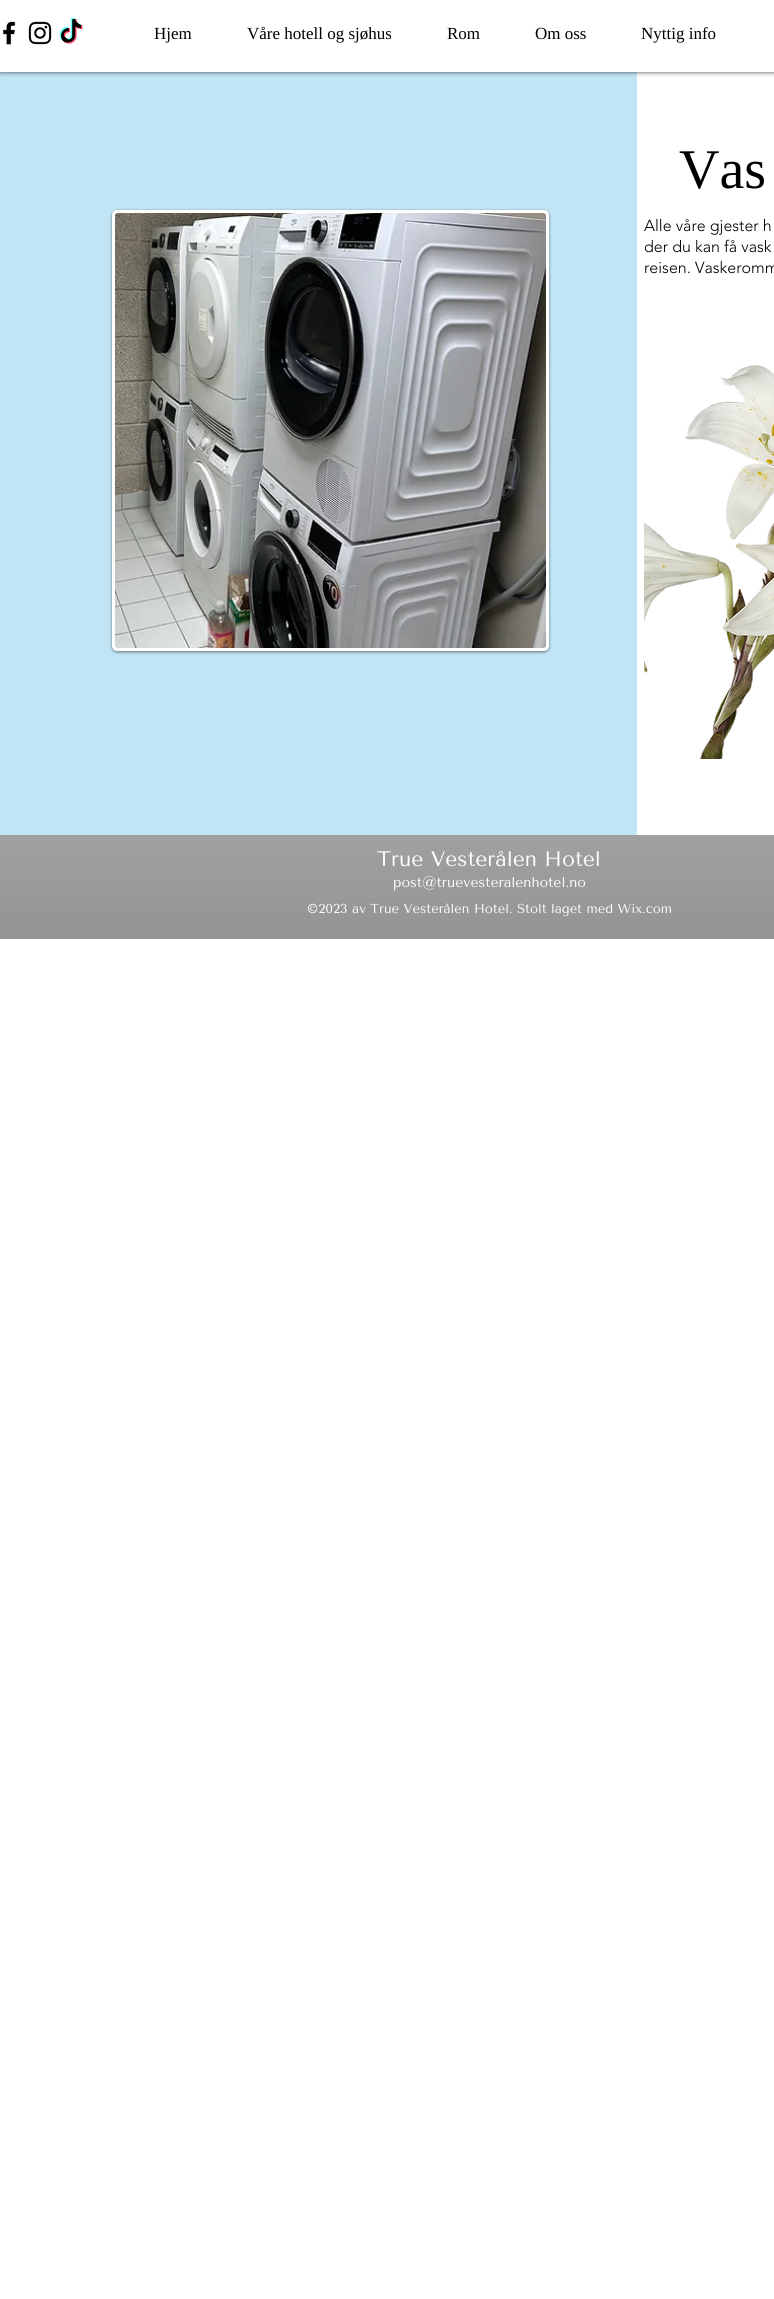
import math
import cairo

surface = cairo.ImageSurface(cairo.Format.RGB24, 774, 2299)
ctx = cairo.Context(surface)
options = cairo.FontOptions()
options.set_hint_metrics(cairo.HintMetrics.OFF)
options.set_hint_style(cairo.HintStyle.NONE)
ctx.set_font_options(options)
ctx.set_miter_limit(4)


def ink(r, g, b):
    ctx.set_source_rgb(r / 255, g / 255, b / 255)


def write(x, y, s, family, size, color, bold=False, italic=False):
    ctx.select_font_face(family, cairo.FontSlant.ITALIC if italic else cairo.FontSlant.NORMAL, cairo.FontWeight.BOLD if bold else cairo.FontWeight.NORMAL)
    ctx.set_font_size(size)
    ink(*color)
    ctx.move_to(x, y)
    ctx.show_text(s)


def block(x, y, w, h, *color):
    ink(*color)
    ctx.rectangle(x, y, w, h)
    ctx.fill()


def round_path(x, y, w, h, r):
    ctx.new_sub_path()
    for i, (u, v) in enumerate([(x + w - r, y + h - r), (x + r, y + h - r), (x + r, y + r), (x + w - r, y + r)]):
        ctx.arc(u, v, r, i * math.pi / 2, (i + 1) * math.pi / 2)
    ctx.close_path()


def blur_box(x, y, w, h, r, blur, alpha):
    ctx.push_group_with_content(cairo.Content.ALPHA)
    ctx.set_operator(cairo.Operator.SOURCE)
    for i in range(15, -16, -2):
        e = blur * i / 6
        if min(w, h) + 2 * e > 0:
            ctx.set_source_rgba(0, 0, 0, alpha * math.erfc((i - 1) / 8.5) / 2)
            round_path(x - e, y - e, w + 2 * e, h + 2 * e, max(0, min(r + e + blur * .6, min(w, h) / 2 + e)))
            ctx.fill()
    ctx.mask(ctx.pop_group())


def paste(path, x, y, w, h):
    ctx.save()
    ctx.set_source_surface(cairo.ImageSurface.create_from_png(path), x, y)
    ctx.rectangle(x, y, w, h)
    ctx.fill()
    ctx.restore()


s1 = dict(family="Liberation Serif", size=17, color=(0, 0, 0))
s2 = dict(family="Liberation Serif", size=56, color=(0, 0, 0))
s3 = dict(family="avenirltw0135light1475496 Light", size=16, color=(0, 0, 0))
s4 = dict(family="Tenor Sans", size=21, color=(255, 255, 255))
s5 = dict(family="Tenor Sans", size=14, color=(255, 255, 255))
s6 = dict(family="Tenor Sans", size=13, color=(255, 255, 255))

ink(255, 255, 255)
ctx.paint()
block(0, 72, 637, 763, 194, 229, 246)
ctx.save()
ctx.rectangle(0, 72, 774, 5)
ctx.clip()
ink(0, 0, 0)
blur_box(0, 0, 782, 72, 0, 2.5, 0.7)
ctx.restore()
paste("pic1.png", 3, 21, 13, 24)
paste("pic2.png", 28, 21, 24, 24)
paste("pic3.png", 59, 18, 24, 26)
write(154, 39, "Hjem", **s1)
write(247, 39, "Våre hotell og sjøhus", **s1)
write(447, 39, "Rom", **s1)
write(535, 39, "Om oss", **s1)
write(641, 39, "Nyttig info", **s1)
ink(0, 0, 0)
blur_box(112, 211, 437, 441, 5, 1.5, 0.5)
ink(255, 255, 255)
round_path(113.5, 211.5, 434, 438, 3.5)
ctx.fill_preserve()
ctx.set_line_width(3)
ctx.stroke()
paste("pic4.png", 115, 213, 431, 435)
write(679, 188, "Vas", **s2)
write(644, 231, "Alle våre gjester h", **s3)
write(644, 252, "der du kan få vask", **s3)
write(644, 273, "reisen. Vaskeromm", **s3)
paste("pic5.png", 644, 365, 130, 394)
block(0, 835, 774, 104, 128, 128, 128)
paste("pic6.png", 0, 835, 774, 104)
write(377, 866, "True Vesterålen Hotel", **s4)
write(393, 887, "post@truevesteralenhotel.no", **s5)
write(307, 913, "©2023 av True Vesterålen Hotel. Stolt laget med Wix.com", **s6)
surface.write_to_png("screenshot.png")
